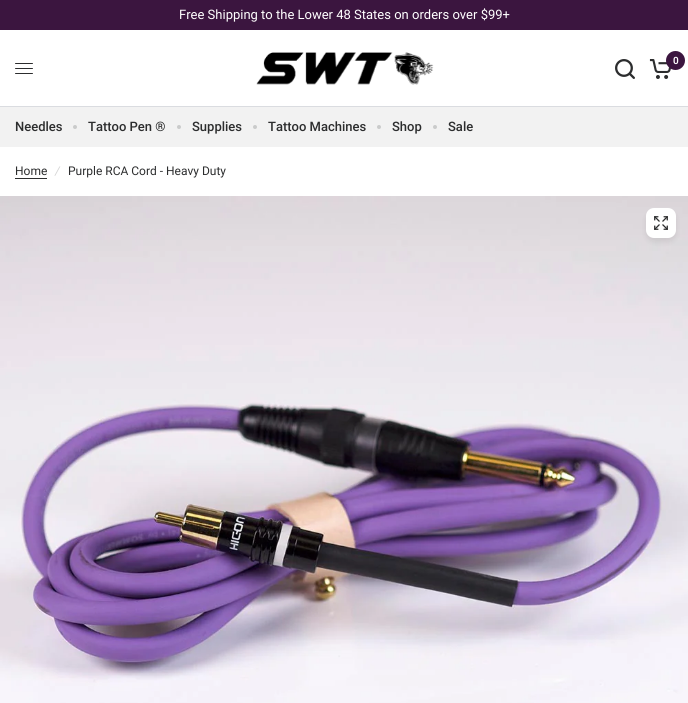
import math
import cairo

surface = cairo.ImageSurface(cairo.Format.RGB24, 688, 703)
ctx = cairo.Context(surface)
options = cairo.FontOptions()
options.set_hint_metrics(cairo.HintMetrics.OFF)
options.set_hint_style(cairo.HintStyle.NONE)
ctx.set_font_options(options)
ctx.set_miter_limit(4)


def ink(r, g, b):
    ctx.set_source_rgb(r / 255, g / 255, b / 255)


def write(x, y, s, family, size, color, bold=False, italic=False):
    ctx.select_font_face(family, cairo.FontSlant.ITALIC if italic else cairo.FontSlant.NORMAL, cairo.FontWeight.BOLD if bold else cairo.FontWeight.NORMAL)
    ctx.set_font_size(size)
    ink(*color)
    ctx.move_to(x, y)
    ctx.show_text(s)


def block(x, y, w, h, *color):
    ink(*color)
    ctx.rectangle(x, y, w, h)
    ctx.fill()


def round_path(x, y, w, h, r):
    ctx.new_sub_path()
    for i, (u, v) in enumerate([(x + w - r, y + h - r), (x + r, y + h - r), (x + r, y + r), (x + w - r, y + r)]):
        ctx.arc(u, v, r, i * math.pi / 2, (i + 1) * math.pi / 2)
    ctx.close_path()


def blur_box(x, y, w, h, r, blur, alpha):
    ctx.push_group_with_content(cairo.Content.ALPHA)
    ctx.set_operator(cairo.Operator.SOURCE)
    for i in range(15, -16, -2):
        e = blur * i / 6
        if min(w, h) + 2 * e > 0:
            ctx.set_source_rgba(0, 0, 0, alpha * math.erfc((i - 1) / 8.5) / 2)
            round_path(x - e, y - e, w + 2 * e, h + 2 * e, max(0, min(r + e + blur * .6, min(w, h) / 2 + e)))
            ctx.fill()
    ctx.mask(ctx.pop_group())


def paste(path, x, y, w, h):
    ctx.save()
    ctx.set_source_surface(cairo.ImageSurface.create_from_png(path), x, y)
    ctx.rectangle(x, y, w, h)
    ctx.fill()
    ctx.restore()


s1 = dict(family="Roboto", size=13, color=(255, 255, 255))
s2 = dict(family="Roboto SemiBold", size=10, color=(255, 255, 255))
s3 = dict(family="Roboto Medium", size=13, color=(44, 45, 46))
s4 = dict(family="Roboto", size=12, color=(44, 45, 46))
s5 = dict(family="Roboto", size=12, color=(213, 213, 213), italic=True)

ink(59, 21, 63)
ctx.paint()
write(179, 19, "Free Shipping to the Lower 48 States on orders over $99+", **s1)
block(0, 30, 688, 76, 255, 255, 255)
paste("pic1.png", 256, 52, 178, 33)
paste("pic2.png", 615, 59, 20, 20)
paste("pic3.png", 649, 59, 22, 20)
ink(59, 21, 63)
ctx.arc(675.5, 60.5, 9.5, 0, 2 * math.pi)
ctx.fill()
write(673, 64, "0", **s2)
ink(44, 45, 46)
round_path(15, 63, 18, 1, 0.5)
ctx.fill()
round_path(15, 68, 18, 1, 0.5)
ctx.fill()
round_path(15, 73, 18, 1, 0.5)
ctx.fill()
block(0, 106, 688, 1, 218, 220, 224)
block(0, 107, 688, 40, 242, 242, 242)
write(15, 131, "Needles", **s3)
ink(202, 203, 203)
ctx.new_path()
ctx.arc(75, 127, 2, 0, 2 * math.pi)
ctx.fill()
write(88, 131, "Tattoo Pen ®", **s3)
ink(202, 203, 203)
ctx.new_path()
ctx.arc(179, 127, 2, 0, 2 * math.pi)
ctx.fill()
write(192, 131, "Supplies", **s3)
ink(202, 203, 203)
ctx.new_path()
ctx.arc(255, 127, 2, 0, 2 * math.pi)
ctx.fill()
write(268, 131, "Tattoo Machines", **s3)
ink(202, 203, 203)
ctx.new_path()
ctx.arc(379, 127, 2, 0, 2 * math.pi)
ctx.fill()
write(392, 131, "Shop", **s3)
ink(202, 203, 203)
ctx.new_path()
ctx.arc(435, 127, 2, 0, 2 * math.pi)
ctx.fill()
write(448, 131, "Sale", **s3)
block(0, 147, 688, 49, 255, 255, 255)
write(15, 175, "Home", **s4)
block(15, 178, 32, 1, 44, 45, 46)
write(55, 175, "/", **s5)
write(68, 175, "Purple RCA Cord - Heavy Duty", **s4)
paste("pic4.png", 0, 196, 688, 507)
ink(0, 0, 0)
blur_box(646, 212, 30, 30, 8, 3, 0.08)
ink(255, 255, 255)
round_path(646, 208, 30, 30, 8)
ctx.fill()
paste("pic5.png", 654, 216, 14, 14)
surface.write_to_png("screenshot.png")
